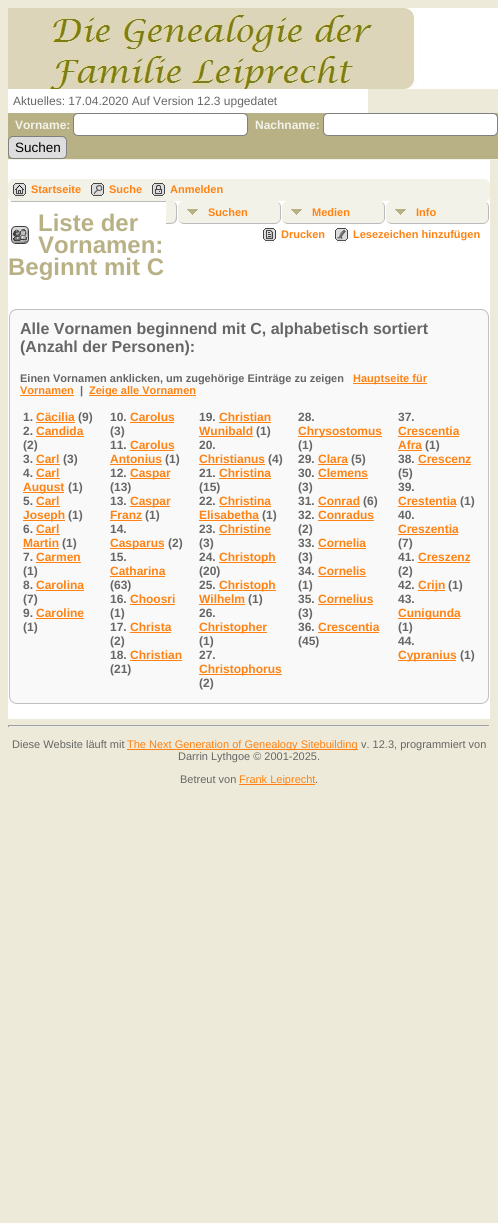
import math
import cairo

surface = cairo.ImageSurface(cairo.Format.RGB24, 498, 1223)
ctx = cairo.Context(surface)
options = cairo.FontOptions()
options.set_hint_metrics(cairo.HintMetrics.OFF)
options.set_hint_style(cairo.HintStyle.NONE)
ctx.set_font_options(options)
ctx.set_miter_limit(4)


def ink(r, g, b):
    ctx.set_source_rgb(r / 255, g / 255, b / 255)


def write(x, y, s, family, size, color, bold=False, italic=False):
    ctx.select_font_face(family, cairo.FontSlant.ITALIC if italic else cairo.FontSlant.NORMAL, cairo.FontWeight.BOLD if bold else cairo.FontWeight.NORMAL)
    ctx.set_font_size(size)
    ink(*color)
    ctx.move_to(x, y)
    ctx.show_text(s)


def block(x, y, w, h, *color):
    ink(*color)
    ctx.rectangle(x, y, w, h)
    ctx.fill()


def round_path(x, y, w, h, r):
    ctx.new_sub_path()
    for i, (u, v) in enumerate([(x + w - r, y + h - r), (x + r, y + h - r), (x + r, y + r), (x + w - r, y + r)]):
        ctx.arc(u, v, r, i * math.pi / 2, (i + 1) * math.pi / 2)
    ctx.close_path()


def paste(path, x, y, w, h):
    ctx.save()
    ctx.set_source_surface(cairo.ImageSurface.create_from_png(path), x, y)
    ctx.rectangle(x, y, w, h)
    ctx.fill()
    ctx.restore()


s1 = dict(family="Liberation Sans", size=12, color=(102, 102, 102))
s2 = dict(family="Liberation Sans", size=12, color=(242, 242, 233), bold=True)
s3 = dict(family="Liberation Sans", size=13.5, color=(0, 0, 0))
s4 = dict(family="Liberation Sans", size=11, color=(255, 130, 18), bold=True)
s5 = dict(family="Liberation Sans", size=24, color=(185, 177, 134), bold=True)
s6 = dict(family="Liberation Sans", size=16, color=(102, 102, 102), bold=True)
s7 = dict(family="Liberation Sans", size=11, color=(102, 102, 102), bold=True)
s8 = dict(family="Liberation Sans", size=12, color=(102, 102, 102), bold=True)
s9 = dict(family="Liberation Sans", size=12, color=(255, 130, 18), bold=True)
s10 = dict(family="Liberation Sans", size=11, color=(102, 102, 102))
s11 = dict(family="Liberation Sans", size=11, color=(255, 130, 18))

ink(237, 234, 217)
ctx.paint()
paste("pic1.png", 8, 8, 490, 81)
block(8, 89, 360, 24, 255, 255, 255)
write(13, 105, "Aktuelles: 17.04.2020 Auf Version 12.3 upgedatet", **s1)
block(8, 113, 490, 46, 185, 177, 134)
block(8, 159, 490, 1, 242, 242, 233)
write(15, 129, "Vorname:", **s2)
ink(255, 255, 255)
round_path(73.5, 113.5, 174, 22, 4.5)
ctx.fill_preserve()
ink(128, 128, 128)
ctx.set_line_width(1)
ctx.stroke()
write(255, 129, "Nachname:", **s2)
ink(255, 255, 255)
round_path(323.5, 113.5, 174, 22, 4.5)
ctx.fill_preserve()
ink(128, 128, 128)
ctx.stroke()
ink(221, 221, 221)
round_path(8.5, 136.5, 58, 22, 4.5)
ctx.fill_preserve()
ink(128, 128, 128)
ctx.stroke()
write(15, 152, "Suchen", **s3)
block(8, 160, 482, 559, 255, 255, 255)
ink(242, 242, 233)
round_path(8, 179, 482, 23, 6)
ctx.fill()
block(11, 201, 155, 1, 187, 187, 187)
paste("pic2.png", 13, 183, 13, 15)
write(31, 193, "Startseite", **s4)
paste("pic3.png", 91, 183, 13, 15)
write(109, 193, "Suche", **s4)
paste("pic4.png", 152, 183, 13, 15)
write(170, 193, "Anmelden", **s4)
block(171, 201, 316, 1, 255, 255, 255)
ink(242, 242, 233)
ctx.new_path()
ctx.move_to(166, 201)
ctx.line_to(171, 201)
ctx.curve_to(174.5, 201, 177, 203.5, 177, 207)
ctx.line_to(177, 218)
ctx.curve_to(177, 221.5, 174.5, 224, 171, 224)
ctx.line_to(166, 224)
ctx.close_path()
ctx.fill()
ink(187, 187, 187)
ctx.set_fill_rule(cairo.FillRule.EVEN_ODD)
ctx.new_path()
ctx.move_to(166, 201)
ctx.curve_to(170, 201, 176, 200.5, 177, 206)
ctx.line_to(177, 219)
ctx.curve_to(176, 224.5, 170, 224, 166, 224)
ctx.close_path()
ctx.move_to(166, 201)
ctx.line_to(172, 201)
ctx.curve_to(177, 202.5, 176, 209, 176, 212.5)
ctx.curve_to(176, 222.5, 175.5, 223, 166, 223)
ctx.close_path()
ctx.fill()
ink(242, 242, 233)
round_path(178, 201, 103, 23, 6)
ctx.fill()
paste("pic5.png", 187, 209, 11, 6)
ink(187, 187, 187)
ctx.new_path()
ctx.move_to(184, 201)
ctx.line_to(275, 201)
ctx.curve_to(278, 201, 281, 204, 281, 207)
ctx.line_to(281, 218)
ctx.curve_to(281, 221, 278, 224, 275, 224)
ctx.line_to(184, 224)
ctx.curve_to(181, 224, 178, 221, 178, 218)
ctx.line_to(178, 207)
ctx.curve_to(178, 204, 181, 201, 184, 201)
ctx.close_path()
ctx.move_to(184, 201)
ctx.line_to(275, 201)
ctx.curve_to(278, 201, 280, 204, 280, 207)
ctx.line_to(280, 218)
ctx.curve_to(280, 221, 278, 223, 275, 223)
ctx.line_to(184, 223)
ctx.curve_to(181, 223, 178, 221, 178, 218)
ctx.line_to(178, 207)
ctx.curve_to(178, 204, 181, 201, 184, 201)
ctx.close_path()
ctx.fill()
write(208, 216, "Suchen", **s4)
ink(242, 242, 233)
round_path(282, 201, 103, 23, 6)
ctx.fill()
paste("pic5.png", 291, 209, 11, 6)
ink(187, 187, 187)
ctx.new_path()
ctx.move_to(288, 201)
ctx.line_to(379, 201)
ctx.curve_to(382, 201, 385, 204, 385, 207)
ctx.line_to(385, 218)
ctx.curve_to(385, 221, 382, 224, 379, 224)
ctx.line_to(288, 224)
ctx.curve_to(285, 224, 282, 221, 282, 218)
ctx.line_to(282, 207)
ctx.curve_to(282, 204, 285, 201, 288, 201)
ctx.close_path()
ctx.move_to(288, 201)
ctx.line_to(379, 201)
ctx.curve_to(382, 201, 384, 204, 384, 207)
ctx.line_to(384, 218)
ctx.curve_to(384, 221, 382, 223, 379, 223)
ctx.line_to(288, 223)
ctx.curve_to(285, 223, 282, 221, 282, 218)
ctx.line_to(282, 207)
ctx.curve_to(282, 204, 285, 201, 288, 201)
ctx.close_path()
ctx.fill()
write(312, 216, "Medien", **s4)
ink(242, 242, 233)
round_path(386, 201, 103, 23, 6)
ctx.fill()
paste("pic5.png", 395, 209, 11, 6)
ink(187, 187, 187)
ctx.new_path()
ctx.move_to(392, 201)
ctx.line_to(483, 201)
ctx.curve_to(486, 201, 489, 204, 489, 207)
ctx.line_to(489, 218)
ctx.curve_to(489, 221, 486, 224, 483, 224)
ctx.line_to(392, 224)
ctx.curve_to(389, 224, 386, 221, 386, 218)
ctx.line_to(386, 207)
ctx.curve_to(386, 204, 389, 201, 392, 201)
ctx.close_path()
ctx.move_to(392, 201)
ctx.line_to(483, 201)
ctx.curve_to(486, 201, 488, 204, 488, 207)
ctx.line_to(488, 218)
ctx.curve_to(488, 221, 486, 223, 483, 223)
ctx.line_to(392, 223)
ctx.curve_to(389, 223, 386, 221, 386, 218)
ctx.line_to(386, 207)
ctx.curve_to(386, 204, 389, 201, 392, 201)
ctx.close_path()
ctx.fill()
write(416, 216, "Info", **s4)
write(38, 231, "Liste der", **s5)
paste("pic6.png", 11, 226, 18, 18)
write(38, 253, "Vornamen:", **s5)
write(8, 275, "Beginnt mit C", **s5)
paste("pic7.png", 263, 228, 13, 15)
write(281, 238, "Drucken", **s4)
paste("pic8.png", 335, 228, 13, 15)
write(353, 238, "Lesezeichen hinzufügen", **s4)
ink(249, 249, 249)
round_path(9.5, 309.5, 479, 394, 7.5)
ctx.fill_preserve()
ink(192, 192, 192)
ctx.stroke()
write(20, 334, "Alle Vornamen beginnend mit C, alphabetisch sortiert", **s6)
write(20, 352, "(Anzahl der Personen):", **s6)
write(20, 382, "Einen Vornamen anklicken, um zugehörige Einträge zu zeigen", **s7)
block(353, 383, 74, 1, 255, 130, 18)
write(353, 382, "Hauptseite für", **s4)
write(20, 394, "Vornamen", **s4)
block(20, 395, 54, 1, 255, 130, 18)
write(80, 394, "|", **s7)
block(89, 395, 107, 1, 255, 130, 18)
write(89, 394, "Zeige alle Vornamen", **s4)
write(23, 421, "1.", **s8)
write(36, 421, "Cäcilia", **s9)
block(36, 422, 39, 1, 255, 130, 18)
write(78, 421, "(9)", **s8)
write(23, 435, "2.", **s8)
write(36, 435, "Candida", **s9)
block(36, 436, 48, 1, 255, 130, 18)
write(23, 449, "(2)", **s8)
write(23, 463, "3.", **s8)
write(36, 463, "Carl", **s9)
block(36, 464, 24, 1, 255, 130, 18)
write(63, 463, "(3)", **s8)
write(23, 477, "4.", **s8)
write(36, 477, "Carl", **s9)
block(36, 478, 24, 1, 255, 130, 18)
block(23, 492, 41, 1, 255, 130, 18)
write(23, 491, "August", **s9)
write(68, 491, "(1)", **s8)
write(23, 505, "5.", **s8)
write(36, 505, "Carl", **s9)
block(36, 506, 24, 1, 255, 130, 18)
block(23, 520, 42, 1, 255, 130, 18)
write(23, 519, "Joseph", **s9)
write(68, 519, "(1)", **s8)
write(23, 533, "6.", **s8)
write(36, 533, "Carl", **s9)
block(36, 534, 24, 1, 255, 130, 18)
write(23, 547, "Martin", **s9)
block(23, 548, 36, 1, 255, 130, 18)
write(62, 547, "(1)", **s8)
write(23, 561, "7.", **s8)
write(36, 561, "Carmen", **s9)
block(36, 562, 45, 1, 255, 130, 18)
write(23, 575, "(1)", **s8)
write(23, 589, "8.", **s8)
write(36, 589, "Carolina", **s9)
block(36, 590, 48, 1, 255, 130, 18)
write(23, 603, "(7)", **s8)
write(23, 617, "9.", **s8)
write(36, 617, "Caroline", **s9)
block(36, 618, 48, 1, 255, 130, 18)
write(23, 631, "(1)", **s8)
write(110, 421, "10.", **s8)
write(130, 421, "Carolus", **s9)
block(130, 422, 44, 1, 255, 130, 18)
write(110, 435, "(3)", **s8)
write(110, 449, "11.", **s8)
write(130, 449, "Carolus", **s9)
block(130, 450, 44, 1, 255, 130, 18)
write(110, 463, "Antonius", **s9)
block(110, 464, 52, 1, 255, 130, 18)
write(165, 463, "(1)", **s8)
write(110, 477, "12.", **s8)
block(130, 478, 40, 1, 255, 130, 18)
write(130, 477, "Caspar", **s9)
write(110, 491, "(13)", **s8)
write(110, 505, "13.", **s8)
block(130, 506, 40, 1, 255, 130, 18)
write(130, 505, "Caspar", **s9)
write(110, 519, "Franz", **s9)
block(110, 520, 32, 1, 255, 130, 18)
write(145, 519, "(1)", **s8)
write(110, 533, "14.", **s8)
block(110, 548, 54, 1, 255, 130, 18)
write(110, 547, "Casparus", **s9)
write(168, 547, "(2)", **s8)
write(110, 561, "15.", **s8)
write(110, 575, "Catharina", **s9)
block(110, 576, 55, 1, 255, 130, 18)
write(110, 589, "(63)", **s8)
write(110, 603, "16.", **s8)
write(130, 603, "Choosri", **s9)
block(130, 604, 45, 1, 255, 130, 18)
write(110, 617, "(1)", **s8)
write(110, 631, "17.", **s8)
write(130, 631, "Christa", **s9)
block(130, 632, 41, 1, 255, 130, 18)
write(110, 645, "(2)", **s8)
write(110, 659, "18.", **s8)
write(130, 659, "Christian", **s9)
block(130, 660, 52, 1, 255, 130, 18)
write(110, 673, "(21)", **s8)
write(199, 421, "19.", **s8)
write(219, 421, "Christian", **s9)
block(219, 422, 52, 1, 255, 130, 18)
write(199, 435, "Wunibald", **s9)
block(199, 436, 54, 1, 255, 130, 18)
write(256, 435, "(1)", **s8)
write(199, 449, "20.", **s8)
write(199, 463, "Christianus", **s9)
block(199, 464, 66, 1, 255, 130, 18)
write(268, 463, "(4)", **s8)
write(199, 477, "21.", **s8)
write(219, 477, "Christina", **s9)
block(219, 478, 52, 1, 255, 130, 18)
write(199, 491, "(15)", **s8)
write(199, 505, "22.", **s8)
write(219, 505, "Christina", **s9)
block(219, 506, 52, 1, 255, 130, 18)
write(199, 519, "Elisabetha", **s9)
block(199, 520, 60, 1, 255, 130, 18)
write(262, 519, "(1)", **s8)
write(199, 533, "23.", **s8)
write(219, 533, "Christine", **s9)
block(219, 534, 52, 1, 255, 130, 18)
write(199, 547, "(3)", **s8)
write(199, 561, "24.", **s8)
block(219, 562, 57, 1, 255, 130, 18)
write(219, 561, "Christoph", **s9)
write(199, 575, "(20)", **s8)
write(199, 589, "25.", **s8)
block(219, 590, 57, 1, 255, 130, 18)
write(219, 589, "Christoph", **s9)
write(199, 603, "Wilhelm", **s9)
block(199, 604, 46, 1, 255, 130, 18)
write(248, 603, "(1)", **s8)
write(199, 617, "26.", **s8)
block(199, 632, 68, 1, 255, 130, 18)
write(199, 631, "Christopher", **s9)
write(199, 645, "(1)", **s8)
write(199, 659, "27.", **s8)
block(199, 674, 83, 1, 255, 130, 18)
write(199, 673, "Christophorus", **s9)
write(199, 687, "(2)", **s8)
write(298, 421, "28.", **s8)
block(298, 436, 84, 1, 255, 130, 18)
write(298, 435, "Chrysostomus", **s9)
write(298, 449, "(1)", **s8)
write(298, 463, "29.", **s8)
write(318, 463, "Clara", **s9)
block(318, 464, 30, 1, 255, 130, 18)
write(351, 463, "(5)", **s8)
write(298, 477, "30.", **s8)
write(318, 477, "Clemens", **s9)
block(318, 478, 50, 1, 255, 130, 18)
write(298, 491, "(3)", **s8)
write(298, 505, "31.", **s8)
write(318, 505, "Conrad", **s9)
block(318, 506, 42, 1, 255, 130, 18)
write(363, 505, "(6)", **s8)
write(298, 519, "32.", **s8)
write(318, 519, "Conradus", **s9)
block(318, 520, 56, 1, 255, 130, 18)
write(298, 533, "(2)", **s8)
write(298, 547, "33.", **s8)
write(318, 547, "Cornelia", **s9)
block(318, 548, 48, 1, 255, 130, 18)
write(298, 561, "(3)", **s8)
write(298, 575, "34.", **s8)
write(318, 575, "Cornelis", **s9)
block(318, 576, 48, 1, 255, 130, 18)
write(298, 589, "(1)", **s8)
write(298, 603, "35.", **s8)
write(318, 603, "Cornelius", **s9)
block(318, 604, 55, 1, 255, 130, 18)
write(298, 617, "(3)", **s8)
write(298, 631, "36.", **s8)
write(318, 631, "Crescentia", **s9)
block(318, 632, 61, 1, 255, 130, 18)
write(298, 645, "(45)", **s8)
write(398, 421, "37.", **s8)
write(398, 435, "Crescentia", **s9)
block(398, 436, 61, 1, 255, 130, 18)
write(398, 449, "Afra", **s9)
block(398, 450, 24, 1, 255, 130, 18)
write(425, 449, "(1)", **s8)
write(398, 463, "38.", **s8)
write(418, 463, "Crescenz", **s9)
block(418, 464, 53, 1, 255, 130, 18)
write(398, 477, "(5)", **s8)
write(398, 491, "39.", **s8)
write(398, 505, "Crestentia", **s9)
block(398, 506, 58, 1, 255, 130, 18)
write(460, 505, "(1)", **s8)
write(398, 519, "40.", **s8)
write(398, 533, "Creszentia", **s9)
block(398, 534, 60, 1, 255, 130, 18)
write(398, 547, "(7)", **s8)
write(398, 561, "41.", **s8)
write(418, 561, "Creszenz", **s9)
block(418, 562, 52, 1, 255, 130, 18)
write(398, 575, "(2)", **s8)
write(398, 589, "42.", **s8)
block(418, 590, 27, 1, 255, 130, 18)
write(418, 589, "Crijn", **s9)
write(448, 589, "(1)", **s8)
write(398, 603, "43.", **s8)
block(398, 618, 62, 1, 255, 130, 18)
write(398, 617, "Cunigunda", **s9)
write(398, 631, "(1)", **s8)
write(398, 645, "44.", **s8)
block(398, 660, 58, 1, 255, 130, 18)
write(398, 659, "Cypranius", **s9)
write(460, 659, "(1)", **s8)
block(8, 725, 482, 1, 159, 159, 159)
block(489, 725, 1, 2, 238, 238, 238)
block(8, 726, 482, 1, 238, 238, 238)
block(8, 725, 1, 2, 159, 159, 159)
write(12, 748, "Diese Website läuft mit", **s10)
block(127, 749, 231, 1, 255, 130, 18)
write(127, 748, "The Next Generation of Genealogy Sitebuilding", **s11)
write(361, 748, "v. 12.3, programmiert von", **s10)
write(178, 760, "Darrin Lythgoe © 2001-2025.", **s10)
write(180, 783, "Betreut von", **s10)
block(239, 784, 76, 1, 255, 130, 18)
write(239, 783, "Frank Leiprecht", **s11)
write(315, 783, ".", **s10)
surface.write_to_png("screenshot.png")
